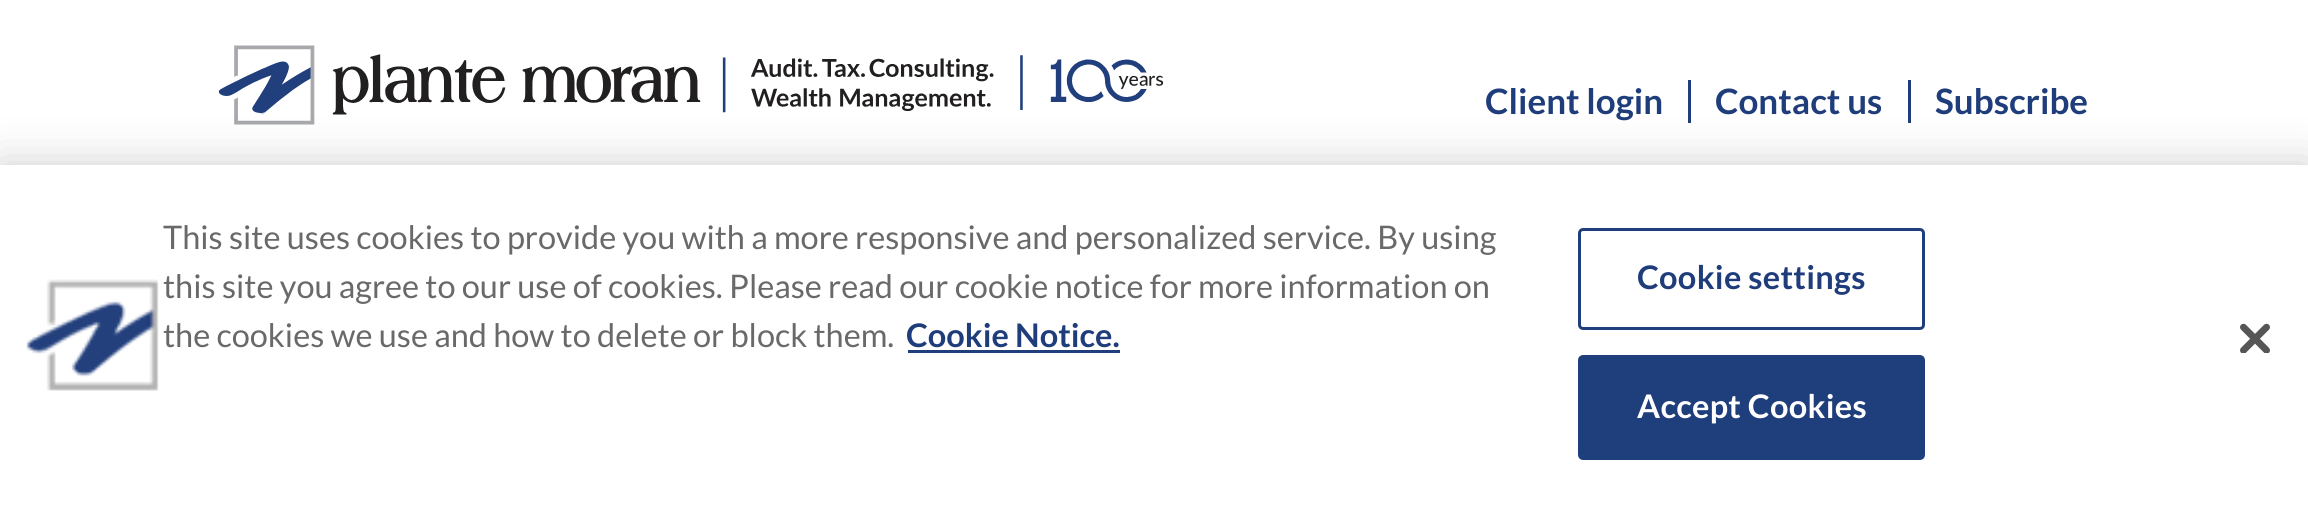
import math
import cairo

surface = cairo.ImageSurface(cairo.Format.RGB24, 2308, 510)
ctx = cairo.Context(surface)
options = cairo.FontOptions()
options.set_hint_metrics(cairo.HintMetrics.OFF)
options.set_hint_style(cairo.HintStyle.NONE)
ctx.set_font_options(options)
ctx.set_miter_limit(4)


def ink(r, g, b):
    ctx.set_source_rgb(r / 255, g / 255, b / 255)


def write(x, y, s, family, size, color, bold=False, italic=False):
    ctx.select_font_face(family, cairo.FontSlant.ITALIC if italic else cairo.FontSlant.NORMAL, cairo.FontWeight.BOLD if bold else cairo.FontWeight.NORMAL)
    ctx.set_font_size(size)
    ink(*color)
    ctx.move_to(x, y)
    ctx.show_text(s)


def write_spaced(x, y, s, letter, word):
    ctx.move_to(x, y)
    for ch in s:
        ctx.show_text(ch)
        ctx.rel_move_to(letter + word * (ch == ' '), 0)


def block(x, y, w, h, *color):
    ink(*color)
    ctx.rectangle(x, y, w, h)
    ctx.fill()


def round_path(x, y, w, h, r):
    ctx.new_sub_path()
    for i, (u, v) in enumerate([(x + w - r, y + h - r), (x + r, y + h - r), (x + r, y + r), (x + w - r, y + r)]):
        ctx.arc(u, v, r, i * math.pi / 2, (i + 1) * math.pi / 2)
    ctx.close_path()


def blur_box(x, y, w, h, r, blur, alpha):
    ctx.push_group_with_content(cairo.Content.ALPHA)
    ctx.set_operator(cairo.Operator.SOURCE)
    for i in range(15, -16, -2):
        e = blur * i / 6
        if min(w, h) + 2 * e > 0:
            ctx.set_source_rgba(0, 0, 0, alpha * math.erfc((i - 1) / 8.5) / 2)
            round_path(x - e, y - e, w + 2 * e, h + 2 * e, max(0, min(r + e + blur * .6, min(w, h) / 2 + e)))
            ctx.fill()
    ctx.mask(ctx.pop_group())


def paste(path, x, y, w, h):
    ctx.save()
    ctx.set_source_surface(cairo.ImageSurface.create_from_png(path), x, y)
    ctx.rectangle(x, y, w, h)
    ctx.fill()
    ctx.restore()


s1 = dict(family="Lato", size=35, color=(31, 61, 123), bold=True)
s2 = dict(family="Lato", size=32.5, color=(105, 105, 105))
s3 = dict(family="Lato", size=32.5, color=(31, 61, 123), bold=True)

ink(255, 255, 255)
ctx.paint()
paste("pic1.png", 218, 45, 946, 80)
block(1688, 80, 3, 43, 31, 61, 123)
write(1485, 114, "Client login", **s1)
block(1908, 80, 3, 43, 31, 61, 123)
write(1715, 114, "Contact us", **s1)
write(1935, 114, "Subscribe", **s1)
ink(0, 0, 0)
blur_box(0, 165, 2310, 345, 0, 22.5, 0.2)
block(0, 165, 2308, 345, 255, 255, 255)
paste("pic2.png", 26, 279, 133, 112)
write(163, 249, "This site uses cookies to provide you with a more responsive and personalized service. By using", **s2)
write(163, 298, "this site you agree to our use of cookies. Please read our cookie notice for more information on", **s2)
write(163, 347, "the cookies we use and how to delete or block them.", **s2)
write(906, 347, "Cookie Notice.", **s3)
block(908, 350, 212, 3, 31, 62, 124)
round_path(1579.5, 229.5, 344, 99, 3.5)
ctx.set_line_width(3)
ctx.stroke()
ink(31, 61, 123)
write_spaced(1637, 289, "Cookie settings", 0.3, 0)
ink(31, 62, 124)
round_path(1579.5, 356.5, 344, 102, 3.5)
ctx.fill_preserve()
ctx.stroke()
ink(255, 255, 255)
write_spaced(1637, 418, "Accept Cookies", 0.3, 0)
paste("pic3.png", 2240, 323, 30, 30)
surface.write_to_png("screenshot.png")
